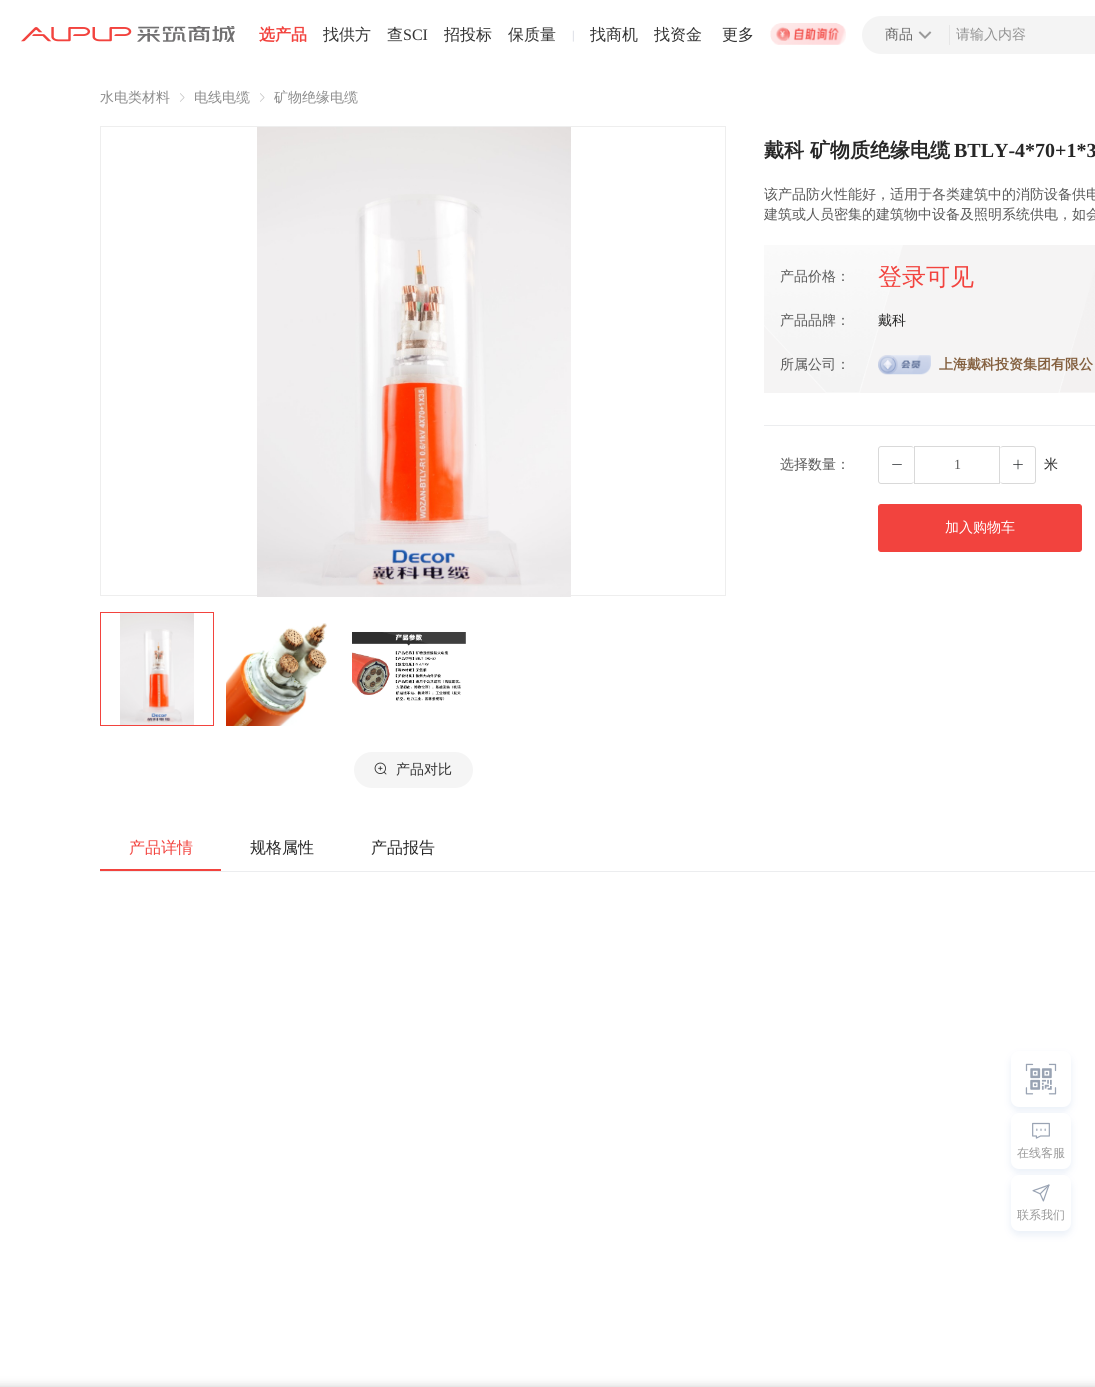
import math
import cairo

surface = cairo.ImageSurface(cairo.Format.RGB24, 1095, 1387)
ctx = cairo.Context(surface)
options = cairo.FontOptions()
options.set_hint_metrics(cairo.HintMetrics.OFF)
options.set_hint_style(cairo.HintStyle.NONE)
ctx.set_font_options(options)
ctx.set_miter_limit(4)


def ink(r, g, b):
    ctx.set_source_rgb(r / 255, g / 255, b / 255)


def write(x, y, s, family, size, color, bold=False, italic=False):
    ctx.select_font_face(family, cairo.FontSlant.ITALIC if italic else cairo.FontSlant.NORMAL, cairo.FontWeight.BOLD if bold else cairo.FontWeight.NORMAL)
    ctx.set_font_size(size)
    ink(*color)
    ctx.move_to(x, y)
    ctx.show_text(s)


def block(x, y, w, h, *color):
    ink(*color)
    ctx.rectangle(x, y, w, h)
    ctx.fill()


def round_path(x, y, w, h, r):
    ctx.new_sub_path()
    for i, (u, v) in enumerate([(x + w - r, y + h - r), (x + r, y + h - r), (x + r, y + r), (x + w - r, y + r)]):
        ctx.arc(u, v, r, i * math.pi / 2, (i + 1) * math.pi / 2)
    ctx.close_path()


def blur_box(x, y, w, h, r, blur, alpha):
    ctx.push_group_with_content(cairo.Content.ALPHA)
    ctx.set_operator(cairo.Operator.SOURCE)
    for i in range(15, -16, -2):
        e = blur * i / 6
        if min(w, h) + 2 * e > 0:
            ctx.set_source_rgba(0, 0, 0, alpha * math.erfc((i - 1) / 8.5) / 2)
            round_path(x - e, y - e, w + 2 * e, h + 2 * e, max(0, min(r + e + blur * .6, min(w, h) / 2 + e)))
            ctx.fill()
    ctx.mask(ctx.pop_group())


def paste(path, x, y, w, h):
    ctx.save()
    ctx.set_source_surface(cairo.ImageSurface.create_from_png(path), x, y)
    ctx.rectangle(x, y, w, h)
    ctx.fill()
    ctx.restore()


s1 = dict(family="WenQuanYi Zen Hei", size=16, color=(242, 67, 62), bold=True)
s2 = dict(family="WenQuanYi Zen Hei Medium", size=16, color=(51, 51, 51))
s3 = dict(family="Liberation Serif", size=16, color=(51, 51, 51))
s4 = dict(family="Liberation Serif", size=12, color=(197, 202, 213))
s5 = dict(family="WenQuanYi Zen Hei Medium", size=14, color=(102, 102, 102))
s6 = dict(family="WenQuanYi Zen Hei Medium", size=14, color=(146, 146, 146))
s7 = dict(family="WenQuanYi Zen Hei Medium", size=14, color=(140, 140, 140))
s8 = dict(family="WenQuanYi Zen Hei", size=20, color=(38, 38, 38), bold=True)
s9 = dict(family="Liberation Serif", size=20, color=(38, 38, 38), bold=True)
s10 = dict(family="WenQuanYi Zen Hei Medium", size=14, color=(89, 89, 89))
s11 = dict(family="WenQuanYi Zen Hei Medium", size=24, color=(242, 67, 62))
s12 = dict(family="WenQuanYi Zen Hei Medium", size=14, color=(38, 38, 38))
s13 = dict(family="WenQuanYi Zen Hei", size=14, color=(132, 96, 63), bold=True)
s14 = dict(family="Liberation Serif", size=14, color=(89, 89, 89))
s15 = dict(family="WenQuanYi Zen Hei Medium", size=14, color=(255, 255, 255))
s16 = dict(family="WenQuanYi Zen Hei Medium", size=14, color=(51, 51, 51))
s17 = dict(family="WenQuanYi Zen Hei Medium", size=16, color=(242, 67, 62))
s18 = dict(family="WenQuanYi Zen Hei Medium", size=16, color=(38, 38, 38))
s19 = dict(family="WenQuanYi Zen Hei Medium", size=12, color=(153, 153, 153))

ink(255, 255, 255)
ctx.paint()
paste("pic1.png", 21, 26, 214, 16)
write(259, 40, "选产品", **s1)
write(323, 40, "找供方", **s2)
write(387, 40, "查", **s2)
write(403, 40, "SCI", **s3)
write(444, 40, "招投标", **s2)
write(508, 40, "保质量", **s2)
write(572, 39, "|", **s4)
write(590, 40, "找商机", **s2)
write(654, 40, "找资金", **s2)
write(722, 40, "更多", **s2)
paste("pic2.png", 770, 23, 76, 22)
ink(244, 244, 244)
round_path(862, 16, 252, 38, 19)
ctx.fill()
write(885, 39, "商品", **s5)
paste("pic3.png", 918, 31, 14, 8)
block(949, 25, 1, 20, 230, 230, 230)
write(956, 39, "请输入内容", **s6)
write(100, 102, "水电类材料", **s7)
paste("pic4.png", 180, 93, 5, 9)
write(194, 102, "电线电缆", **s7)
paste("pic4.png", 260, 93, 5, 9)
write(274, 102, "矿物绝缘电缆", **s7)
write(764, 157, "戴科 矿物质绝缘电缆", **s8)
write(954, 157, "BTLY-4*70+1*3", **s9)
write(764, 199, "该产品防火性能好，适用于各类建筑中的消防设备供电", **s10)
write(764, 219, "建筑或人员密集的建筑物中设备及照明系统供电，如会", **s10)
paste("pic5.png", 764, 245, 331, 148)
write(780, 281, "产品价格：", **s10)
write(878, 285, "登录可见", **s11)
write(780, 325, "产品品牌：", **s10)
write(878, 325, "戴科", **s12)
write(780, 369, "所属公司：", **s10)
paste("pic6.png", 878, 355, 53, 20)
write(939, 369, "上海戴科投资集团有限公", **s13)
block(764, 425, 331, 1, 236, 237, 239)
write(780, 469, "选择数量：", **s10)
ink(217, 217, 217)
ctx.set_fill_rule(cairo.FillRule.EVEN_ODD)
ctx.new_path()
ctx.move_to(881, 446)
ctx.line_to(911, 446)
ctx.curve_to(912.5, 446, 914, 447.5, 914, 449)
ctx.line_to(914, 481)
ctx.curve_to(914, 482.5, 912.5, 484, 911, 484)
ctx.line_to(881, 484)
ctx.curve_to(879.5, 484, 878, 482.5, 878, 481)
ctx.line_to(878, 449)
ctx.curve_to(878, 447.5, 879.5, 446, 881, 446)
ctx.close_path()
ctx.move_to(881, 447)
ctx.line_to(911, 447)
ctx.curve_to(912.5, 447, 914, 448, 914, 449)
ctx.line_to(914, 481)
ctx.curve_to(914, 482, 912.5, 483, 911, 483)
ctx.line_to(881, 483)
ctx.curve_to(880, 483, 879, 482, 879, 481)
ctx.line_to(879, 449)
ctx.curve_to(879, 448, 880, 447, 881, 447)
ctx.close_path()
ctx.fill()
paste("pic7.png", 892, 464, 10, 1)
ctx.rectangle(914.5, 446.5, 85, 37)
ctx.set_line_width(1)
ctx.stroke()
write(954, 469, "1", **s14)
ink(217, 217, 217)
ctx.new_path()
ctx.move_to(1003, 446)
ctx.line_to(1033, 446)
ctx.curve_to(1034.5, 446, 1036, 447.5, 1036, 449)
ctx.line_to(1036, 481)
ctx.curve_to(1036, 482.5, 1034.5, 484, 1033, 484)
ctx.line_to(1003, 484)
ctx.curve_to(1001.5, 484, 1000, 482.5, 1000, 481)
ctx.line_to(1000, 449)
ctx.curve_to(1000, 447.5, 1001.5, 446, 1003, 446)
ctx.close_path()
ctx.move_to(1003, 447)
ctx.line_to(1033, 447)
ctx.curve_to(1034, 447, 1035, 448, 1035, 449)
ctx.line_to(1035, 481)
ctx.curve_to(1035, 482, 1034, 483, 1033, 483)
ctx.line_to(1003, 483)
ctx.curve_to(1001.5, 483, 1000, 482, 1000, 481)
ctx.line_to(1000, 449)
ctx.curve_to(1000, 448, 1001.5, 447, 1003, 447)
ctx.close_path()
ctx.fill()
paste("pic8.png", 1013, 459, 10, 11)
write(1044, 469, "米", **s12)
ink(242, 67, 62)
round_path(878.5, 504.5, 203, 47, 2.5)
ctx.fill_preserve()
ctx.stroke()
write(945, 532, "加入购物车", **s15)
ctx.rectangle(100.5, 126.5, 625, 469)
ink(238, 238, 238)
ctx.stroke()
paste("pic9.png", 257, 127, 314, 470)
ctx.rectangle(100.5, 612.5, 113, 113)
ink(242, 67, 62)
ctx.stroke()
paste("pic10.png", 120, 613, 74, 112)
paste("pic11.png", 226, 623, 101, 103)
paste("pic12.png", 352, 632, 114, 69)
ink(245, 245, 245)
round_path(354, 752, 119, 36, 18)
ctx.fill()
paste("pic13.png", 374, 762, 13, 13)
write(396, 774, "产品对比", **s16)
block(100, 871, 995, 1, 236, 237, 239)
write(129, 853, "产品详情", **s17)
block(100, 869, 121, 2, 242, 67, 62)
write(250, 853, "规格属性", **s18)
write(371, 853, "产品报告", **s18)
ink(75, 125, 194)
blur_box(1011, 1055, 60, 56, 8, 4, 0.12)
ink(255, 255, 255)
round_path(1011, 1051, 60, 56, 8)
ctx.fill()
paste("pic14.png", 1025, 1063, 32, 32)
ink(75, 125, 194)
blur_box(1011, 1117, 60, 56, 8, 4, 0.12)
ink(255, 255, 255)
round_path(1011, 1113, 60, 56, 8)
ctx.fill()
paste("pic15.png", 1032, 1122, 18, 17)
write(1017, 1157, "在线客服", **s19)
ink(75, 125, 194)
blur_box(1011, 1179, 60, 56, 8, 4, 0.12)
ink(255, 255, 255)
round_path(1011, 1175, 60, 56, 8)
ctx.fill()
paste("pic16.png", 1032, 1184, 18, 18)
write(1017, 1219, "联系我们", **s19)
ink(0, 0, 0)
blur_box(-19, 1387, 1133, 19, 4, 5, 0.2)
surface.write_to_png("screenshot.png")
